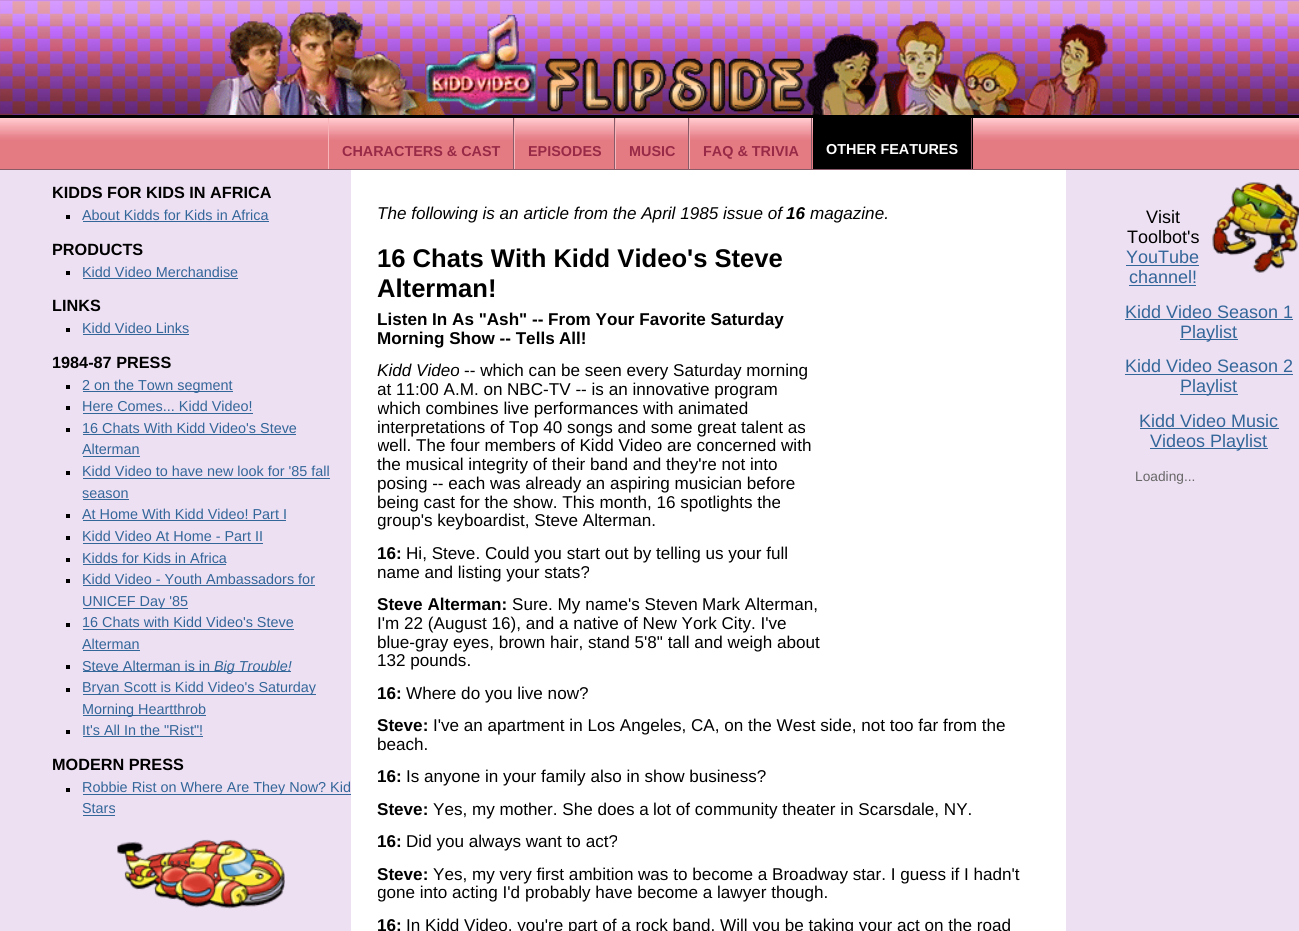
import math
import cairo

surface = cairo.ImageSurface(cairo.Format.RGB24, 1299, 931)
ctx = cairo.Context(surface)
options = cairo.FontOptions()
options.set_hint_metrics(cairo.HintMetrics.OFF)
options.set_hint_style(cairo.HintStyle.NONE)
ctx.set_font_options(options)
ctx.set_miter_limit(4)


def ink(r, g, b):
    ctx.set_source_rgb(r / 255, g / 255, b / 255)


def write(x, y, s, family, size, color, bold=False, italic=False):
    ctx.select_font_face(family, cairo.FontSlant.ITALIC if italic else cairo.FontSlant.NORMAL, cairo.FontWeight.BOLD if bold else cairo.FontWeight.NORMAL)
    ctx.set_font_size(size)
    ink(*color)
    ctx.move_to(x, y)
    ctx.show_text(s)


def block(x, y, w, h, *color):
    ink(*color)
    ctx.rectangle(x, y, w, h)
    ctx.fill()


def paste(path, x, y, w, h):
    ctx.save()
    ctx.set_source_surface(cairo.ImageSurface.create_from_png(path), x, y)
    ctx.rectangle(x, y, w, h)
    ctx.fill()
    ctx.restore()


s1 = dict(family="Liberation Sans", size=14.4, color=(152, 42, 71), bold=True)
s2 = dict(family="Liberation Sans", size=14.4, color=(255, 255, 255), bold=True)
s3 = dict(family="Liberation Sans", size=16.25, color=(0, 0, 0), bold=True)
s4 = dict(family="Liberation Sans", size=14.4, color=(51, 102, 153))
s5 = dict(family="Liberation Sans", size=14.4, color=(51, 102, 153), italic=True)
s6 = dict(family="Liberation Sans", size=17.1, color=(0, 0, 0), italic=True)
s7 = dict(family="Liberation Sans", size=17.1, color=(0, 0, 0), bold=True, italic=True)
s8 = dict(family="Liberation Sans", size=25.6, color=(0, 0, 0), bold=True)
s9 = dict(family="Liberation Sans", size=17.1, color=(0, 0, 0), bold=True)
s10 = dict(family="Liberation Sans", size=17.1, color=(0, 0, 0))
s11 = dict(family="Liberation Sans", size=18, color=(0, 0, 0))
s12 = dict(family="Liberation Sans", size=18, color=(51, 102, 153))
s13 = dict(family="Liberation Sans", size=13.75, color=(103, 103, 103))

ink(255, 255, 255)
ctx.paint()
paste("pic1.png", 0, 0, 1299, 115)
paste("pic2.png", 202, 12, 906, 103)
block(0, 140, 1299, 29, 229, 123, 130)
paste("pic3.png", 0, 118, 1299, 22)
block(0, 115, 1299, 3, 0, 0, 0)
block(0, 169, 1299, 1, 137, 91, 105)
block(513, 118, 1, 51, 137, 91, 105)
block(328, 118, 1, 51, 247, 181, 186)
write(342, 156, "CHARACTERS & CAST", **s1)
block(614, 118, 1, 51, 137, 91, 105)
block(514, 118, 1, 51, 247, 181, 186)
write(528, 156, "EPISODES", **s1)
block(688, 118, 1, 51, 137, 91, 105)
block(615, 118, 1, 51, 247, 181, 186)
write(629, 156, "MUSIC", **s1)
block(811, 118, 1, 51, 137, 91, 105)
block(689, 118, 1, 51, 247, 181, 186)
write(703, 156, "FAQ & TRIVIA", **s1)
block(813, 118, 160, 51, 0, 0, 0)
block(971, 118, 1, 51, 137, 91, 105)
write(826, 154, "OTHER FEATURES", **s2)
block(1066, 170, 233, 761, 238, 224, 243)
block(0, 170, 351, 761, 238, 224, 243)
write(52, 198, "KIDDS FOR KIDS IN AFRICA", **s3)
block(66, 215, 4, 4, 0, 0, 0)
write(82, 220, "About Kidds for Kids in Africa", **s4)
block(83, 221, 186, 1, 51, 102, 153)
write(52, 255, "PRODUCTS", **s3)
block(66, 271, 4, 4, 0, 0, 0)
write(82, 277, "Kidd Video Merchandise", **s4)
block(83, 278, 155, 1, 51, 102, 153)
write(52, 311, "LINKS", **s3)
block(66, 328, 4, 4, 0, 0, 0)
write(82, 333, "Kidd Video Links", **s4)
block(83, 334, 106, 1, 51, 102, 153)
write(52, 368, "1984-87 PRESS", **s3)
block(66, 385, 4, 4, 0, 0, 0)
block(83, 391, 150, 1, 51, 102, 153)
write(82, 390, "2 on the Town segment", **s4)
block(66, 406, 4, 4, 0, 0, 0)
write(82, 411, "Here Comes... Kidd Video!", **s4)
block(83, 413, 170, 1, 51, 102, 153)
block(66, 428, 4, 4, 0, 0, 0)
write(82, 433, "16 Chats With Kidd Video's Steve", **s4)
block(83, 434, 213, 1, 51, 102, 153)
write(82, 454, "Alterman", **s4)
block(83, 456, 57, 1, 51, 102, 153)
block(66, 471, 4, 4, 0, 0, 0)
write(82, 476, "Kidd Video to have new look for '85 fall", **s4)
block(83, 478, 247, 1, 51, 102, 153)
write(82, 498, "season", **s4)
block(83, 499, 46, 1, 51, 102, 153)
block(66, 514, 4, 4, 0, 0, 0)
write(82, 519, "At Home With Kidd Video! Part I", **s4)
block(83, 520, 203, 1, 51, 102, 153)
block(66, 536, 4, 4, 0, 0, 0)
write(82, 541, "Kidd Video At Home - Part II", **s4)
block(83, 543, 180, 1, 51, 102, 153)
block(66, 558, 4, 4, 0, 0, 0)
write(82, 563, "Kidds for Kids in Africa", **s4)
block(83, 564, 143, 1, 51, 102, 153)
block(66, 579, 4, 4, 0, 0, 0)
write(82, 584, "Kidd Video - Youth Ambassadors for", **s4)
block(83, 585, 232, 1, 51, 102, 153)
block(83, 608, 105, 1, 51, 102, 153)
write(82, 606, "UNICEF Day '85", **s4)
block(66, 623, 4, 4, 0, 0, 0)
write(82, 627, "16 Chats with Kidd Video's Steve", **s4)
block(83, 629, 211, 1, 51, 102, 153)
write(82, 649, "Alterman", **s4)
block(83, 650, 57, 1, 51, 102, 153)
block(66, 665, 4, 4, 0, 0, 0)
block(83, 671, 208, 1, 51, 102, 153)
write(82, 671, "Steve Alterman is in", **s4)
write(214, 671, "Big Trouble!", **s5)
block(66, 688, 4, 4, 0, 0, 0)
block(83, 694, 233, 1, 51, 102, 153)
write(82, 692, "Bryan Scott is Kidd Video's Saturday", **s4)
block(83, 715, 123, 1, 51, 102, 153)
write(82, 714, "Morning Heartthrob", **s4)
block(66, 730, 4, 4, 0, 0, 0)
write(82, 735, "It's All In the \"Rist\"!", **s4)
block(83, 736, 120, 1, 51, 102, 153)
write(52, 770, "MODERN PRESS", **s3)
block(66, 788, 4, 4, 0, 0, 0)
block(83, 794, 268, 1, 51, 102, 153)
write(82, 792, "Robbie Rist on Where Are They Now? Kid", **s4)
write(82, 813, "Stars", **s4)
block(83, 815, 32, 1, 51, 102, 153)
paste("pic4.png", 117, 839, 168, 70)
write(377, 219, "The following is an article from the April 1985 issue of", **s6)
write(786, 219, "16", **s7)
write(810, 219, "magazine.", **s6)
write(377, 267, "16 Chats With Kidd Video's Steve", **s8)
write(377, 297, "Alterman!", **s8)
write(377, 325, "Listen In As \"Ash\" -- From Your Favorite Saturday", **s9)
write(377, 344, "Morning Show -- Tells", **s9)
write(559, 344, "All!", **s9)
write(377, 376, "Kidd Video", **s6)
write(464, 376, "-- which can be seen every Saturday morning", **s10)
ctx.save()
ctx.rectangle(378, 170, 662, 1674)
ctx.clip()
write(377, 395, "at 11:00 A.M. on", **s10)
ctx.restore()
write(507, 395, "NBC-TV -- is an innovative program", **s10)
ctx.save()
ctx.rectangle(378, 170, 662, 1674)
ctx.clip()
write(377, 414, "which combines live performances with", **s10)
ctx.restore()
write(678, 414, "animated", **s10)
write(377, 433, "interpretations of Top 40 songs and some great talent as", **s10)
ctx.save()
ctx.rectangle(378, 170, 662, 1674)
ctx.clip()
write(377, 451, "well.", **s10)
ctx.restore()
write(416, 451, "The four members of Kidd Video are concerned with", **s10)
write(377, 470, "the musical integrity of their band and they're not into", **s10)
write(377, 489, "posing -- each was already an aspiring musician before", **s10)
write(377, 508, "being cast for the show. This month, 16 spotlights the", **s10)
ctx.save()
ctx.rectangle(378, 170, 662, 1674)
ctx.clip()
write(377, 526, "group's keyboardist, Steve Alterman.", **s10)
ctx.restore()
write(377, 559, "16:", **s9)
write(406, 559, "Hi, Steve. Could you start out by telling us your full", **s10)
write(377, 578, "name and listing your stats?", **s10)
write(377, 610, "Steve Alterman:", **s9)
write(512, 610, "Sure. My name's Steven", **s10)
write(702, 610, "Mark Alterman,", **s10)
write(377, 629, "I'm 22 (August 16), and a native of New York City. I've", **s10)
write(377, 648, "blue-gray eyes, brown hair, stand 5'8\" tall and weigh about", **s10)
write(377, 666, "132 pounds.", **s10)
write(377, 699, "16:", **s9)
write(406, 699, "Where do you live now?", **s10)
write(377, 731, "Steve:", **s9)
write(433, 731, "I've an apartment in Los Angeles, CA, on the West side, not too far from the", **s10)
write(377, 750, "beach.", **s10)
write(377, 782, "16:", **s9)
write(406, 782, "Is anyone in your family also in show business?", **s10)
write(377, 815, "Steve:", **s9)
write(433, 815, "Yes, my mother. She does a", **s10)
write(653, 815, "lot of community theater in Scarsdale, NY.", **s10)
write(377, 847, "16:", **s9)
write(406, 847, "Did you always want to act?", **s10)
write(377, 880, "Steve:", **s9)
write(433, 880, "Yes, my very first ambition", **s10)
write(638, 880, "was to become a Broadway star. I guess if I hadn't", **s10)
ctx.save()
ctx.rectangle(378, 170, 662, 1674)
ctx.clip()
write(377, 898, "gone into acting I'd", **s10)
ctx.restore()
write(525, 898, "probably have become a lawyer though.", **s10)
write(377, 931, "16:", **s9)
write(406, 931, "In Kidd Video, you're part of a rock band. Will you be taking your act on the road", **s10)
paste("pic5.png", 1212, 182, 87, 91)
write(1146, 223, "Visit", **s11)
write(1127, 243, "Toolbot's", **s11)
write(1126, 263, "YouTube", **s12)
block(1126, 265, 73, 1, 51, 102, 153)
write(1129, 283, "channel!", **s12)
block(1129, 285, 67, 1, 51, 102, 153)
write(1125, 318, "Kidd Video Season 1", **s12)
block(1125, 319, 168, 1, 51, 102, 153)
block(1180, 339, 58, 1, 51, 102, 153)
write(1180, 338, "Playlist", **s12)
write(1125, 372, "Kidd Video Season 2", **s12)
block(1125, 374, 168, 1, 51, 102, 153)
block(1180, 394, 58, 1, 51, 102, 153)
write(1180, 392, "Playlist", **s12)
write(1139, 427, "Kidd Video Music", **s12)
block(1140, 428, 139, 1, 51, 102, 153)
block(1150, 448, 118, 1, 51, 102, 153)
write(1150, 447, "Videos Playlist", **s12)
write(1135, 481, "Loading...", **s13)
surface.write_to_png("screenshot.png")
